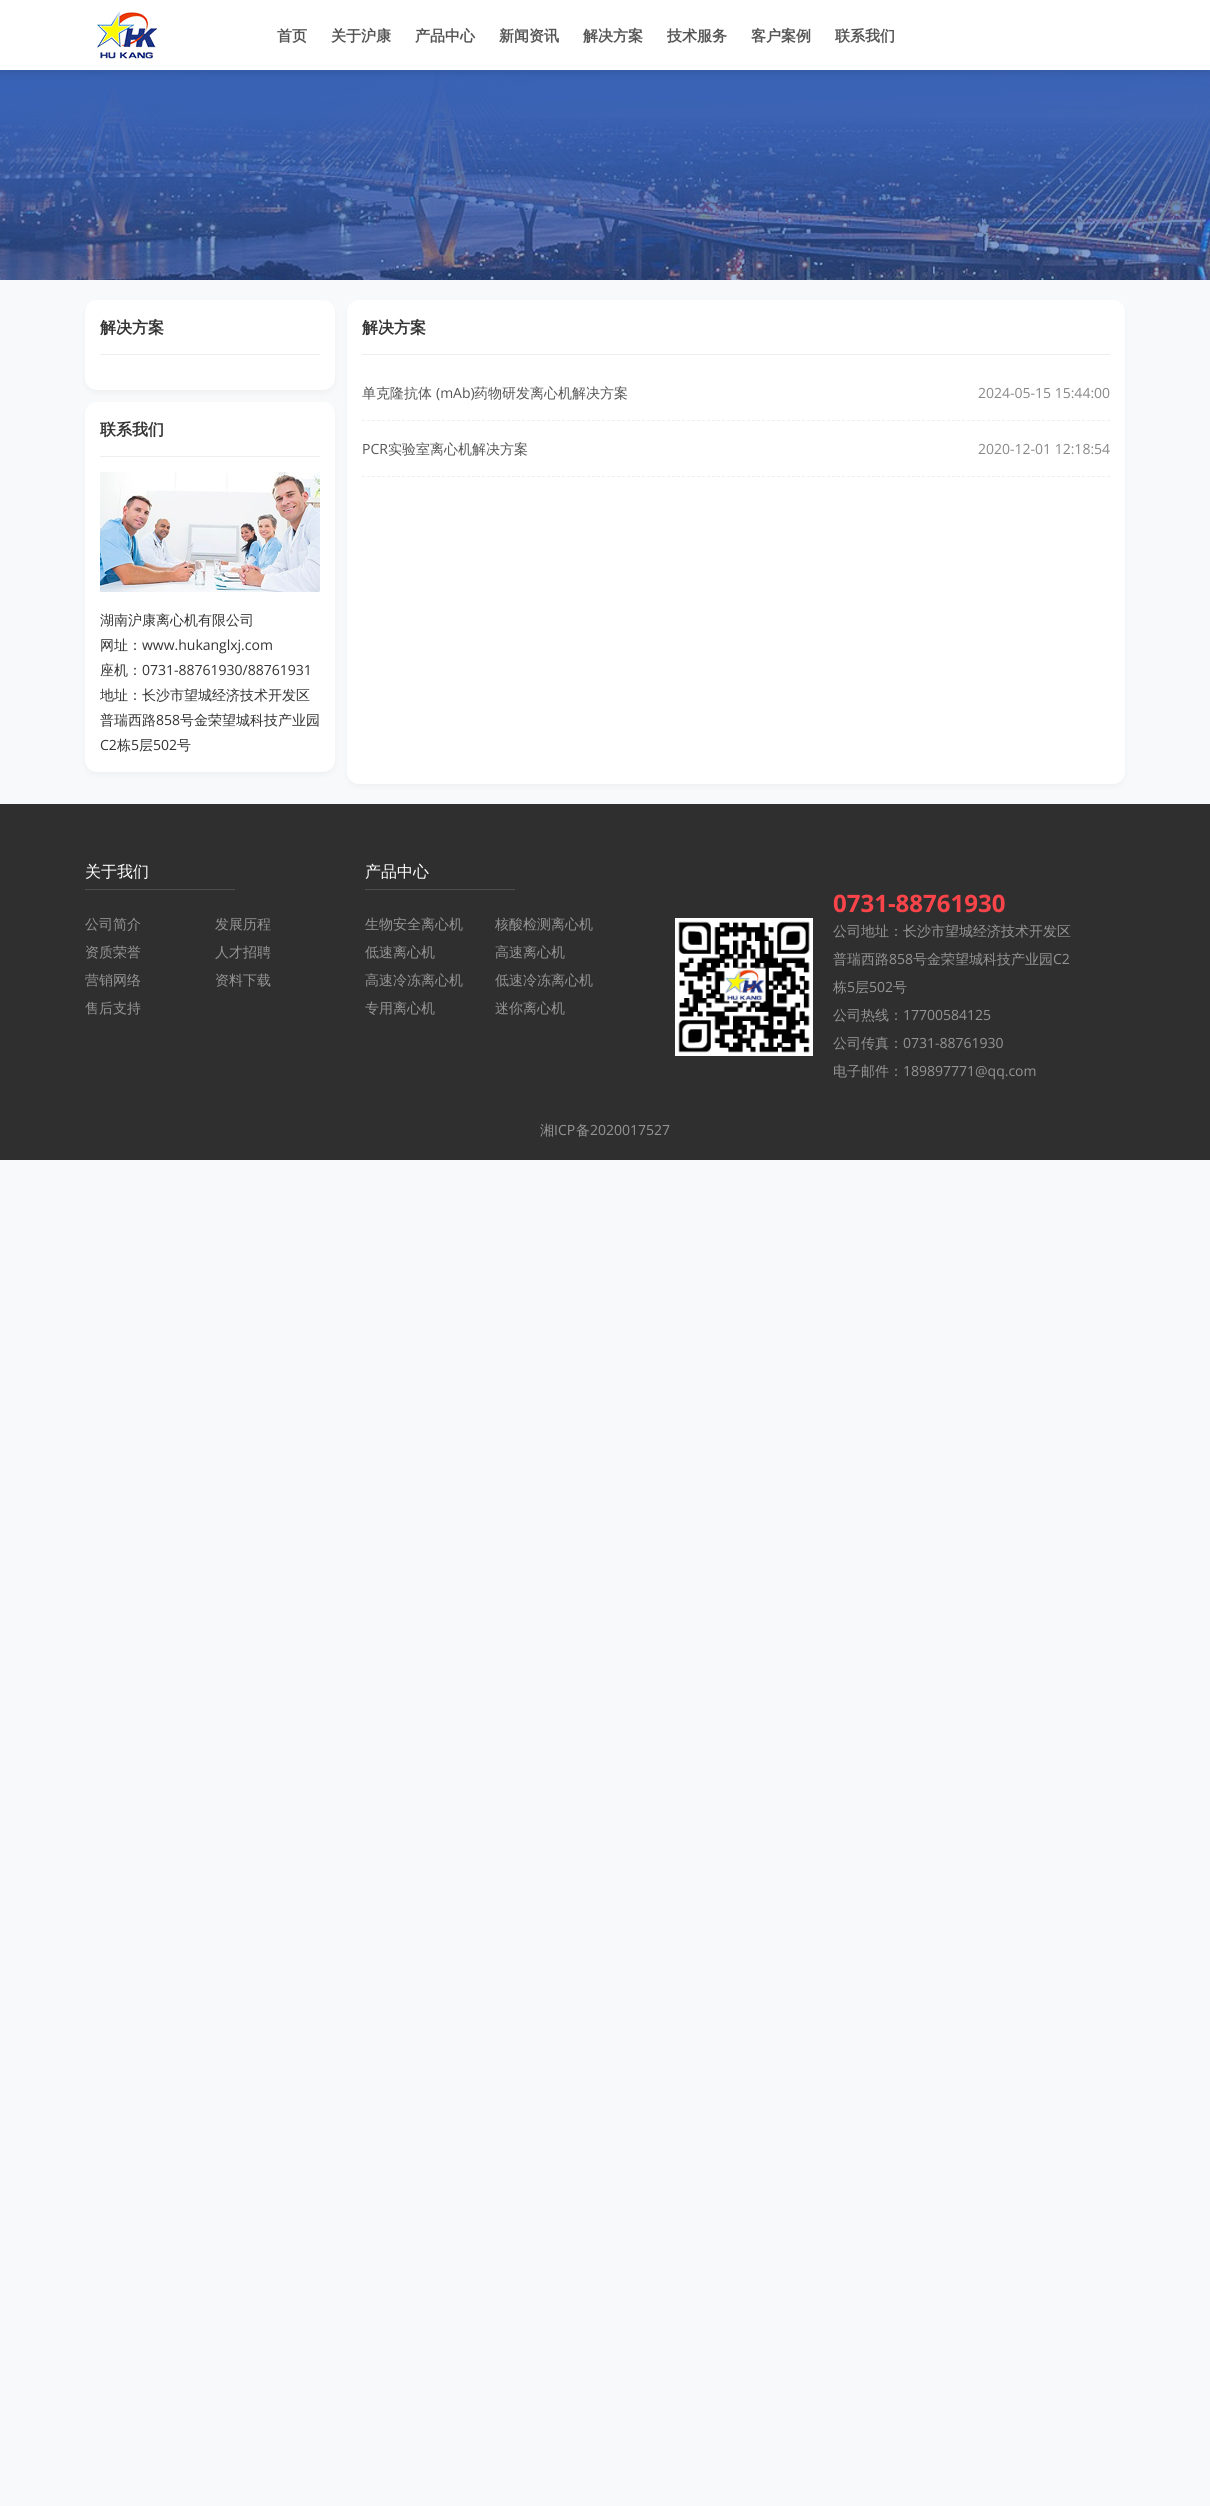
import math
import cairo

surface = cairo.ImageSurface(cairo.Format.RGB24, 1210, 2506)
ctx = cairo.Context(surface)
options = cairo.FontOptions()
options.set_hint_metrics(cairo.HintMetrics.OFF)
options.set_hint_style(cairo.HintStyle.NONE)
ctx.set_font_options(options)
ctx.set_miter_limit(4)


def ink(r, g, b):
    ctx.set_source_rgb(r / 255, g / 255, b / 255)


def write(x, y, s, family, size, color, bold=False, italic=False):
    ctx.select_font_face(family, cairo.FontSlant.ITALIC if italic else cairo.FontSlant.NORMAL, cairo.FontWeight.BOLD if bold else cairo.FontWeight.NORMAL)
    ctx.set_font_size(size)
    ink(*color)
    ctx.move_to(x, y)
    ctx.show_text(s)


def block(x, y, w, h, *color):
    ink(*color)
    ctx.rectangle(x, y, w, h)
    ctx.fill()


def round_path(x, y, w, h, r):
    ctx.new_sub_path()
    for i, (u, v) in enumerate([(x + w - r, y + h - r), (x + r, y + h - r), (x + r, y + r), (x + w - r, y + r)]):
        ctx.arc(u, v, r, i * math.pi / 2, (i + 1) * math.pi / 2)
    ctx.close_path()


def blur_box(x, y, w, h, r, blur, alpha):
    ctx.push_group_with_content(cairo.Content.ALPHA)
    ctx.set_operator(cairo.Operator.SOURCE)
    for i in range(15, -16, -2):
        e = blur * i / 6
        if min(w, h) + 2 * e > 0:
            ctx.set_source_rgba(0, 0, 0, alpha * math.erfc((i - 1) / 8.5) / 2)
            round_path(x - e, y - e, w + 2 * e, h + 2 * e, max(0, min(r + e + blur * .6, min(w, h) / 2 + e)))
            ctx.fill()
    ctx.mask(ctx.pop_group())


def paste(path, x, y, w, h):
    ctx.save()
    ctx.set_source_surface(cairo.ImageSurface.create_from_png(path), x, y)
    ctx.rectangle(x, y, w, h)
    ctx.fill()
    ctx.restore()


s1 = dict(family="WenQuanYi Zen Hei", size=15, color=(85, 85, 85), bold=True)
s2 = dict(family="WenQuanYi Zen Hei", size=16, color=(51, 51, 51), bold=True)
s3 = dict(family="WenQuanYi Zen Hei Medium", size=14, color=(51, 51, 51))
s4 = dict(family="Open Sans", size=14, color=(51, 51, 51))
s5 = dict(family="WenQuanYi Zen Hei Medium", size=14, color=(85, 85, 85))
s6 = dict(family="Open Sans", size=14, color=(85, 85, 85))
s7 = dict(family="Open Sans", size=14, color=(136, 136, 136))
s8 = dict(family="WenQuanYi Zen Hei Medium", size=16, color=(255, 255, 255))
s9 = dict(family="WenQuanYi Zen Hei Medium", size=14, color=(148, 148, 148))
s10 = dict(family="Open Sans", size=24, color=(249, 68, 74), bold=True)
s11 = dict(family="Open Sans", size=14, color=(148, 148, 148))

ink(248, 249, 250)
ctx.paint()
paste("pic2.png", 0, 70, 1210, 210)
ink(0, 0, 0)
blur_box(0, 3, 1210, 70, 0, 3.5, 0.09)
block(0, 0, 1210, 70, 255, 255, 255)
paste("pic1.png", 97, 11, 60, 48)
write(277, 41, "首页", **s1)
write(331, 41, "关于沪康", **s1)
write(415, 41, "产品中心", **s1)
write(499, 41, "新闻资讯", **s1)
write(583, 41, "解决方案", **s1)
write(667, 41, "技术服务", **s1)
write(751, 41, "客户案例", **s1)
write(835, 41, "联系我们", **s1)
ink(0, 0, 0)
blur_box(85, 303, 250, 90, 12, 3.5, 0.04)
ink(255, 255, 255)
round_path(85, 300, 250, 90, 12)
ctx.fill()
block(100, 354, 220, 1, 238, 238, 238)
write(100, 333, "解决方案", **s2)
ink(0, 0, 0)
blur_box(85, 405, 250, 370, 12, 3.5, 0.04)
ink(255, 255, 255)
round_path(85, 402, 250, 370, 12)
ctx.fill()
block(100, 456, 220, 1, 238, 238, 238)
write(100, 435, "联系我们", **s2)
paste("pic3.png", 100, 472, 220, 120)
write(100, 625, "湖南沪康离心机有限公司", **s3)
write(100, 650, "网址：", **s3)
write(142, 650, "www.hukanglxj.com", **s4)
write(100, 675, "座机：", **s3)
write(142, 675, "0731-88761930/88761931", **s4)
write(100, 700, "地址：长沙市望城经济技术开发区", **s3)
write(100, 725, "普瑞西路", **s3)
write(156, 725, "858", **s4)
write(180, 725, "号金荣望城科技产业园", **s3)
write(100, 750, "C2", **s4)
write(117, 750, "栋", **s3)
write(131, 750, "5", **s4)
write(139, 750, "层", **s3)
write(153, 750, "502", **s4)
write(177, 750, "号", **s3)
ink(0, 0, 0)
blur_box(347, 303, 778, 484, 12, 3.5, 0.04)
ink(255, 255, 255)
round_path(347, 300, 778, 484, 12)
ctx.fill()
block(362, 354, 748, 1, 238, 238, 238)
write(362, 333, "解决方案", **s2)
ctx.new_path()
ctx.move_to(362, 420.5)
ctx.line_to(1110, 420.5)
ink(238, 238, 238)
ctx.set_line_width(1)
ctx.set_dash([3, 2])
ctx.stroke()
write(362, 398, "单克隆抗体", **s5)
write(436, 398, "(mAb)", **s6)
write(474, 398, "药物研发离心机解决方案", **s5)
write(978, 398, "2024-05-15 15:44:00", **s7)
ctx.new_path()
ctx.move_to(362, 476.5)
ctx.line_to(1110, 476.5)
ink(238, 238, 238)
ctx.stroke()
write(362, 454, "PCR", **s6)
write(388, 454, "实验室离心机解决方案", **s5)
write(978, 454, "2020-12-01 12:18:54", **s7)
block(0, 804, 1210, 356, 47, 47, 47)
block(85, 889, 150, 1, 78, 78, 78)
write(85, 877, "关于我们", **s8)
write(85, 929, "公司简介", **s9)
write(215, 929, "发展历程", **s9)
write(85, 957, "资质荣誉", **s9)
write(215, 957, "人才招聘", **s9)
write(85, 985, "营销网络", **s9)
write(215, 985, "资料下载", **s9)
write(85, 1013, "售后支持", **s9)
block(365, 889, 150, 1, 78, 78, 78)
write(365, 877, "产品中心", **s8)
write(365, 929, "生物安全离心机", **s9)
write(495, 929, "核酸检测离心机", **s9)
write(365, 957, "低速离心机", **s9)
write(495, 957, "高速离心机", **s9)
write(365, 985, "高速冷冻离心机", **s9)
write(495, 985, "低速冷冻离心机", **s9)
write(365, 1013, "专用离心机", **s9)
write(495, 1013, "迷你离心机", **s9)
block(675, 918, 138, 138, 255, 255, 255)
paste("pic4.png", 678, 921, 132, 132)
write(833, 912, "0731-88761930", **s10)
write(833, 936, "公司地址：长沙市望城经济技术开发区", **s9)
write(833, 964, "普瑞西路", **s9)
write(889, 964, "858", **s11)
write(913, 964, "号金荣望城科技产业园", **s9)
write(1053, 964, "C2", **s11)
write(833, 992, "栋", **s9)
write(847, 992, "5", **s11)
write(855, 992, "层", **s9)
write(869, 992, "502", **s11)
write(893, 992, "号", **s9)
write(833, 1020, "公司热线：", **s9)
write(903, 1020, "17700584125", **s11)
write(833, 1048, "公司传真：", **s9)
write(903, 1048, "0731-88761930", **s11)
write(833, 1076, "电子邮件：", **s9)
write(903, 1076, "189897771@qq.com", **s11)
write(540, 1135, "湘", **s9)
write(554, 1135, "ICP", **s11)
write(576, 1135, "备", **s9)
write(590, 1135, "2020017527", **s11)
surface.write_to_png("screenshot.png")
